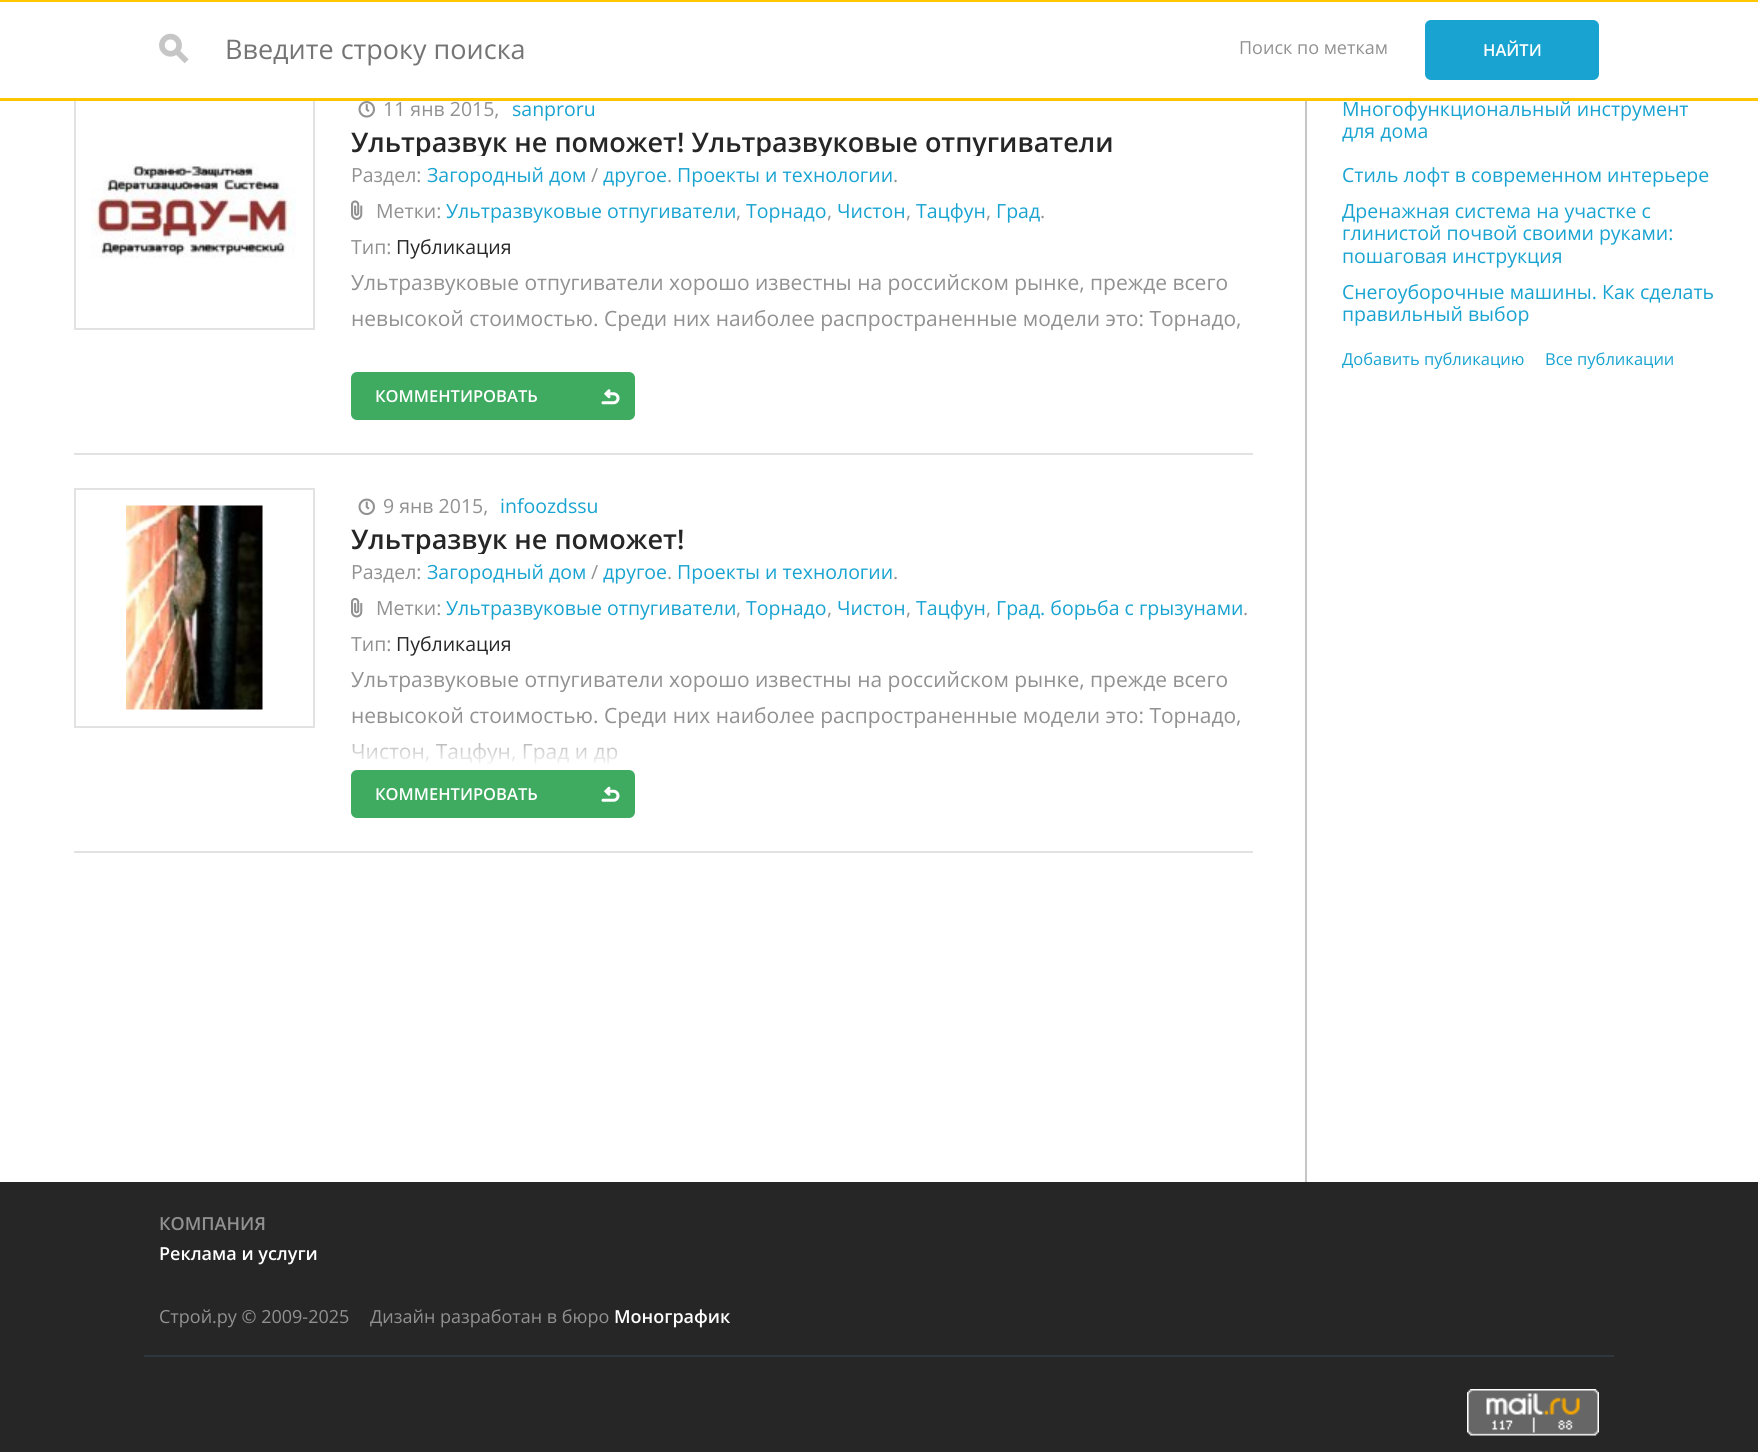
import math
import cairo

surface = cairo.ImageSurface(cairo.Format.RGB24, 1758, 1452)
ctx = cairo.Context(surface)
options = cairo.FontOptions()
options.set_hint_metrics(cairo.HintMetrics.OFF)
options.set_hint_style(cairo.HintStyle.NONE)
ctx.set_font_options(options)
ctx.set_miter_limit(4)


def ink(r, g, b):
    ctx.set_source_rgb(r / 255, g / 255, b / 255)


def write(x, y, s, family, size, color, bold=False, italic=False):
    ctx.select_font_face(family, cairo.FontSlant.ITALIC if italic else cairo.FontSlant.NORMAL, cairo.FontWeight.BOLD if bold else cairo.FontWeight.NORMAL)
    ctx.set_font_size(size)
    ink(*color)
    ctx.move_to(x, y)
    ctx.show_text(s)


def block(x, y, w, h, *color):
    ink(*color)
    ctx.rectangle(x, y, w, h)
    ctx.fill()


def round_path(x, y, w, h, r):
    ctx.new_sub_path()
    for i, (u, v) in enumerate([(x + w - r, y + h - r), (x + r, y + h - r), (x + r, y + r), (x + w - r, y + r)]):
        ctx.arc(u, v, r, i * math.pi / 2, (i + 1) * math.pi / 2)
    ctx.close_path()


def paste(path, x, y, w, h):
    ctx.save()
    ctx.set_source_surface(cairo.ImageSurface.create_from_png(path), x, y)
    ctx.rectangle(x, y, w, h)
    ctx.fill()
    ctx.restore()


s1 = dict(family="Open Sans", size=27, color=(117, 117, 117))
s2 = dict(family="Open Sans", size=18, color=(145, 145, 145))
s3 = dict(family="Open Sans SemiBold", size=16.5, color=(255, 255, 255))
s4 = dict(family="Open Sans", size=19.5, color=(145, 145, 145))
s5 = dict(family="Open Sans", size=19.5, color=(24, 163, 209))
s6 = dict(family="Open Sans SemiBold", size=27, color=(38, 38, 38))
s7 = dict(family="Open Sans", size=19.5, color=(38, 38, 38))
s8 = dict(family="Open Sans", size=21, color=(145, 145, 145))
s9 = dict(family="Open Sans", size=16.5, color=(24, 163, 209))
s10 = dict(family="Open Sans SemiBold", size=18, color=(145, 145, 145))
s11 = dict(family="Open Sans SemiBold", size=18, color=(255, 255, 255))

ink(255, 255, 255)
ctx.paint()
ctx.rectangle(75, 91, 239, 238)
ink(226, 226, 226)
ctx.stroke()
block(74, 90, 241, 8, 255, 255, 255)
block(0, 0, 1758, 2, 255, 198, 0)
block(0, 98, 1758, 3, 255, 198, 0)
paste("pic1.png", 159, 33, 30, 31)
write(225, 59, "Введите строку поиска", **s1)
write(1239, 54, "Поиск по меткам", **s2)
ink(24, 163, 209)
round_path(1425, 20, 174, 60, 6)
ctx.fill()
write(1483, 56, "НАЙТИ", **s3)
block(1305, 101, 2, 1081, 198, 198, 198)
block(74, 453, 1179, 2, 226, 226, 226)
paste("pic2.png", 91, 163, 205, 95)
paste("pic3.png", 358, 101, 17, 17)
write(383, 116, "11 янв 2015,", **s4)
write(512, 116, "sanproru", **s5)
ctx.save()
ctx.rectangle(351, 126, 902, 30)
ctx.clip()
write(351, 152, "Ультразвук не поможет! Ультразвуковые отпугиватели", **s6)
ctx.restore()
write(351, 182, "Раздел:", **s4)
write(427, 182, "Загородный дом", **s5)
write(591, 182, "/", **s4)
write(603, 182, "другое", **s5)
write(667, 182, ".", **s4)
write(677, 182, "Проекты и технологии", **s5)
write(893, 182, ".", **s4)
paste("pic4.png", 351, 200, 12, 20)
write(376, 218, "Метки:", **s4)
write(446, 218, "Ультразвуковые отпугиватели", **s5)
write(736, 218, ",", **s4)
write(746, 218, "Торнадо", **s5)
write(827, 218, ",", **s4)
write(837, 218, "Чистон", **s5)
write(906, 218, ",", **s4)
write(916, 218, "Тацфун", **s5)
write(986, 218, ",", **s4)
write(996, 218, "Град", **s5)
write(1040, 218, ".", **s4)
write(351, 254, "Тип:", **s4)
write(396, 254, "Публикация", **s7)
write(351, 290, "Ультразвуковые отпугиватели хорошо известны на российском рынке, прежде всего", **s8)
write(351, 326, "невысокой стоимостью. Среди них наиболее распространенные модели это: Торнадо,", **s8)
ink(63, 171, 97)
round_path(352, 373, 282, 46, 5)
ctx.fill_preserve()
ctx.stroke()
write(375, 402, "КОММЕНТИРОВАТЬ", **s3)
paste("pic5.png", 601, 389, 19, 16)
block(74, 851, 1179, 2, 226, 226, 226)
ctx.rectangle(75, 489, 239, 238)
ctx.stroke()
paste("pic6.png", 126, 505, 137, 205)
paste("pic7.png", 358, 498, 17, 18)
write(383, 513, "9 янв 2015,", **s4)
write(500, 513, "infoozdssu", **s5)
ctx.save()
ctx.rectangle(351, 524, 902, 30)
ctx.clip()
write(351, 549, "Ультразвук не поможет!", **s6)
ctx.restore()
write(351, 579, "Раздел:", **s4)
write(427, 579, "Загородный дом", **s5)
write(591, 579, "/", **s4)
write(603, 579, "другое", **s5)
write(667, 579, ".", **s4)
write(677, 579, "Проекты и технологии", **s5)
write(893, 579, ".", **s4)
paste("pic8.png", 351, 598, 12, 20)
write(376, 615, "Метки:", **s4)
write(446, 615, "Ультразвуковые отпугиватели", **s5)
write(736, 615, ",", **s4)
write(746, 615, "Торнадо", **s5)
write(827, 615, ",", **s4)
write(837, 615, "Чистон", **s5)
write(906, 615, ",", **s4)
write(916, 615, "Тацфун", **s5)
write(986, 615, ",", **s4)
write(996, 615, "Град. борьба с грызунами", **s5)
write(1243, 615, ".", **s4)
write(351, 651, "Тип:", **s4)
write(396, 651, "Публикация", **s7)
write(351, 687, "Ультразвуковые отпугиватели хорошо известны на российском рынке, прежде всего", **s8)
write(351, 723, "невысокой стоимостью. Среди них наиболее распространенные модели это: Торнадо,", **s8)
write(351, 759, "Чистон, Тацфун, Град и др", **s8)
gradient = cairo.LinearGradient(802, 733, 802, 767)
gradient.add_color_stop_rgba(0, 1, 1, 1, 0.1)
gradient.add_color_stop_rgba(1, 1, 1, 1, 1)
ctx.set_source(gradient)
ctx.rectangle(352, 743, 266, 22)
ctx.fill()
ink(63, 171, 97)
round_path(352, 771, 282, 46, 5)
ctx.fill_preserve()
ctx.stroke()
write(375, 800, "КОММЕНТИРОВАТЬ", **s3)
paste("pic9.png", 601, 786, 19, 16)
write(1342, 116, "Многофункциональный инструмент", **s5)
write(1342, 138, "для дома", **s5)
write(1342, 182, "Стиль лофт в современном интерьере", **s5)
write(1342, 218, "Дренажная система на участке с", **s5)
write(1342, 240, "глинистой почвой своими руками:", **s5)
write(1342, 263, "пошаговая инструкция", **s5)
write(1342, 299, "Снегоуборочные машины. Как сделать", **s5)
write(1342, 321, "правильный выбор", **s5)
write(1342, 365, "Добавить публикацию", **s9)
write(1545, 365, "Все публикации", **s9)
block(0, 1182, 1758, 270, 38, 38, 38)
write(159, 1230, "КОМПАНИЯ", **s10)
write(159, 1260, "Реклама и услуги", **s11)
write(159, 1323, "Строй.ру © 2009-2025", **s2)
write(370, 1323, "Дизайн разработан в бюро", **s2)
write(614, 1323, "Монографик", **s11)
block(144, 1355, 1470, 2, 47, 54, 60)
paste("pic10.png", 1467, 1389, 132, 47)
surface.write_to_png("screenshot.png")
